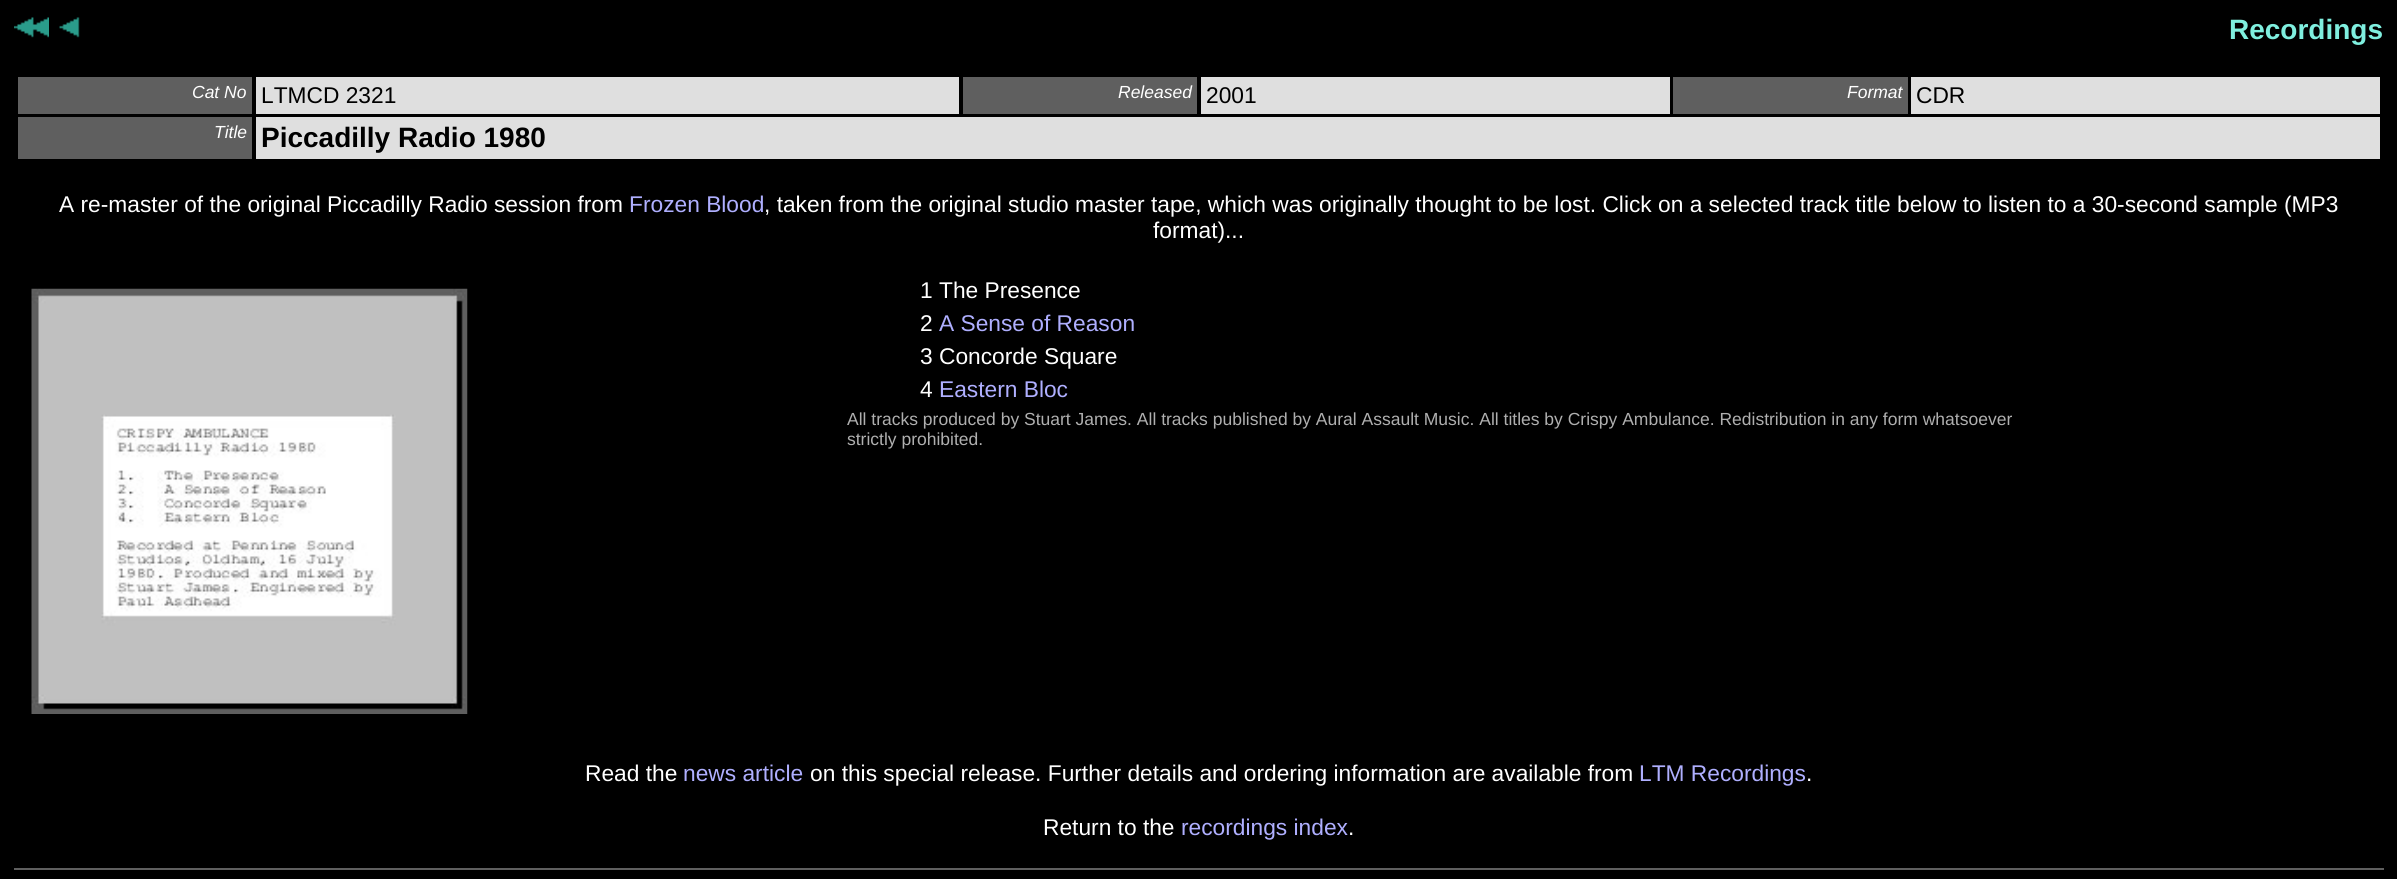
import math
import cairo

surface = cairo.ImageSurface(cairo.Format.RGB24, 2397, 879)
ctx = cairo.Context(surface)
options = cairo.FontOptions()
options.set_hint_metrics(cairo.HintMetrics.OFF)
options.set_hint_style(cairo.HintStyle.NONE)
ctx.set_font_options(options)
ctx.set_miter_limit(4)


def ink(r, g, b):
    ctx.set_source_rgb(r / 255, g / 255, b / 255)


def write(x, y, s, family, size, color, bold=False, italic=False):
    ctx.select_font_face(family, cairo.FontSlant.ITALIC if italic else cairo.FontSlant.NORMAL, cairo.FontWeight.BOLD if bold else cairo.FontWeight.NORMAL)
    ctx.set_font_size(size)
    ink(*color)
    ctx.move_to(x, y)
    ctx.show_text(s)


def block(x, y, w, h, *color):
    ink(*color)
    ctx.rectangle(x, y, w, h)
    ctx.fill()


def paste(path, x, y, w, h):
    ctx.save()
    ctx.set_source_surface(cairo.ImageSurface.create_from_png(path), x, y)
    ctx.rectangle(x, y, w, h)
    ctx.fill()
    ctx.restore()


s1 = dict(family="Liberation Sans", size=28, color=(127, 239, 223), bold=True)
s2 = dict(family="Liberation Sans", size=17.5, color=(255, 255, 255), italic=True)
s3 = dict(family="Liberation Sans", size=22.75, color=(0, 0, 0))
s4 = dict(family="Liberation Sans", size=28, color=(0, 0, 0), bold=True)
s5 = dict(family="Liberation Sans", size=22.75, color=(255, 255, 255))
s6 = dict(family="Liberation Sans", size=22.75, color=(175, 175, 255))
s7 = dict(family="Liberation Sans", size=17.5, color=(175, 175, 175))

ink(0, 0, 0)
ctx.paint()
paste("pic1.png", 14, 17, 35, 21)
paste("pic2.png", 59, 17, 21, 21)
write(2229, 39, "Recordings", **s1)
block(18, 77, 234, 37, 95, 95, 95)
write(192, 98, "Cat No", **s2)
block(256, 77, 703, 37, 223, 223, 223)
write(261, 103, "LTMCD 2321", **s3)
block(963, 77, 234, 37, 95, 95, 95)
write(1118, 98, "Released", **s2)
block(1201, 77, 469, 37, 223, 223, 223)
write(1206, 103, "2001", **s3)
block(1673, 77, 235, 37, 95, 95, 95)
write(1847, 98, "Format", **s2)
block(1911, 77, 469, 37, 223, 223, 223)
write(1916, 103, "CDR", **s3)
block(18, 117, 234, 42, 95, 95, 95)
write(214, 138, "Title", **s2)
block(256, 117, 2124, 42, 223, 223, 223)
write(261, 147, "Piccadilly Radio 1980", **s4)
write(59, 212, "A re-master of the original Piccadilly Radio session from", **s5)
write(629, 212, "Frozen Blood", **s6)
write(764, 212, ", taken from the original studio master tape, which was originally thought to be lost. Click on a selected track title below to listen to a 30-second sample (MP3", **s5)
write(1153, 238, "format)...", **s5)
paste("pic3.png", 31, 288, 437, 426)
write(920, 298, "1", **s5)
write(939, 298, "The Presence", **s5)
write(920, 331, "2", **s5)
write(939, 331, "A Sense of Reason", **s6)
write(920, 364, "3", **s5)
write(939, 364, "Concorde Square", **s5)
write(920, 397, "4", **s5)
write(939, 397, "Eastern Bloc", **s6)
write(847, 425, "All tracks produced by Stuart James. All tracks published by Aural Assault Music. All titles by Crispy Ambulance. Redistribution in any form whatsoever", **s7)
write(847, 445, "strictly prohibited.", **s7)
write(585, 781, "Read the", **s5)
write(683, 781, "news article", **s6)
write(810, 781, "on this special release. Further details and ordering information are available from", **s5)
write(1639, 781, "LTM Recordings", **s6)
write(1806, 781, ".", **s5)
write(1043, 835, "Return to the", **s5)
write(1181, 835, "recordings index", **s6)
write(1348, 835, ".", **s5)
block(14, 868, 2370, 2, 95, 95, 95)
surface.write_to_png("screenshot.png")
